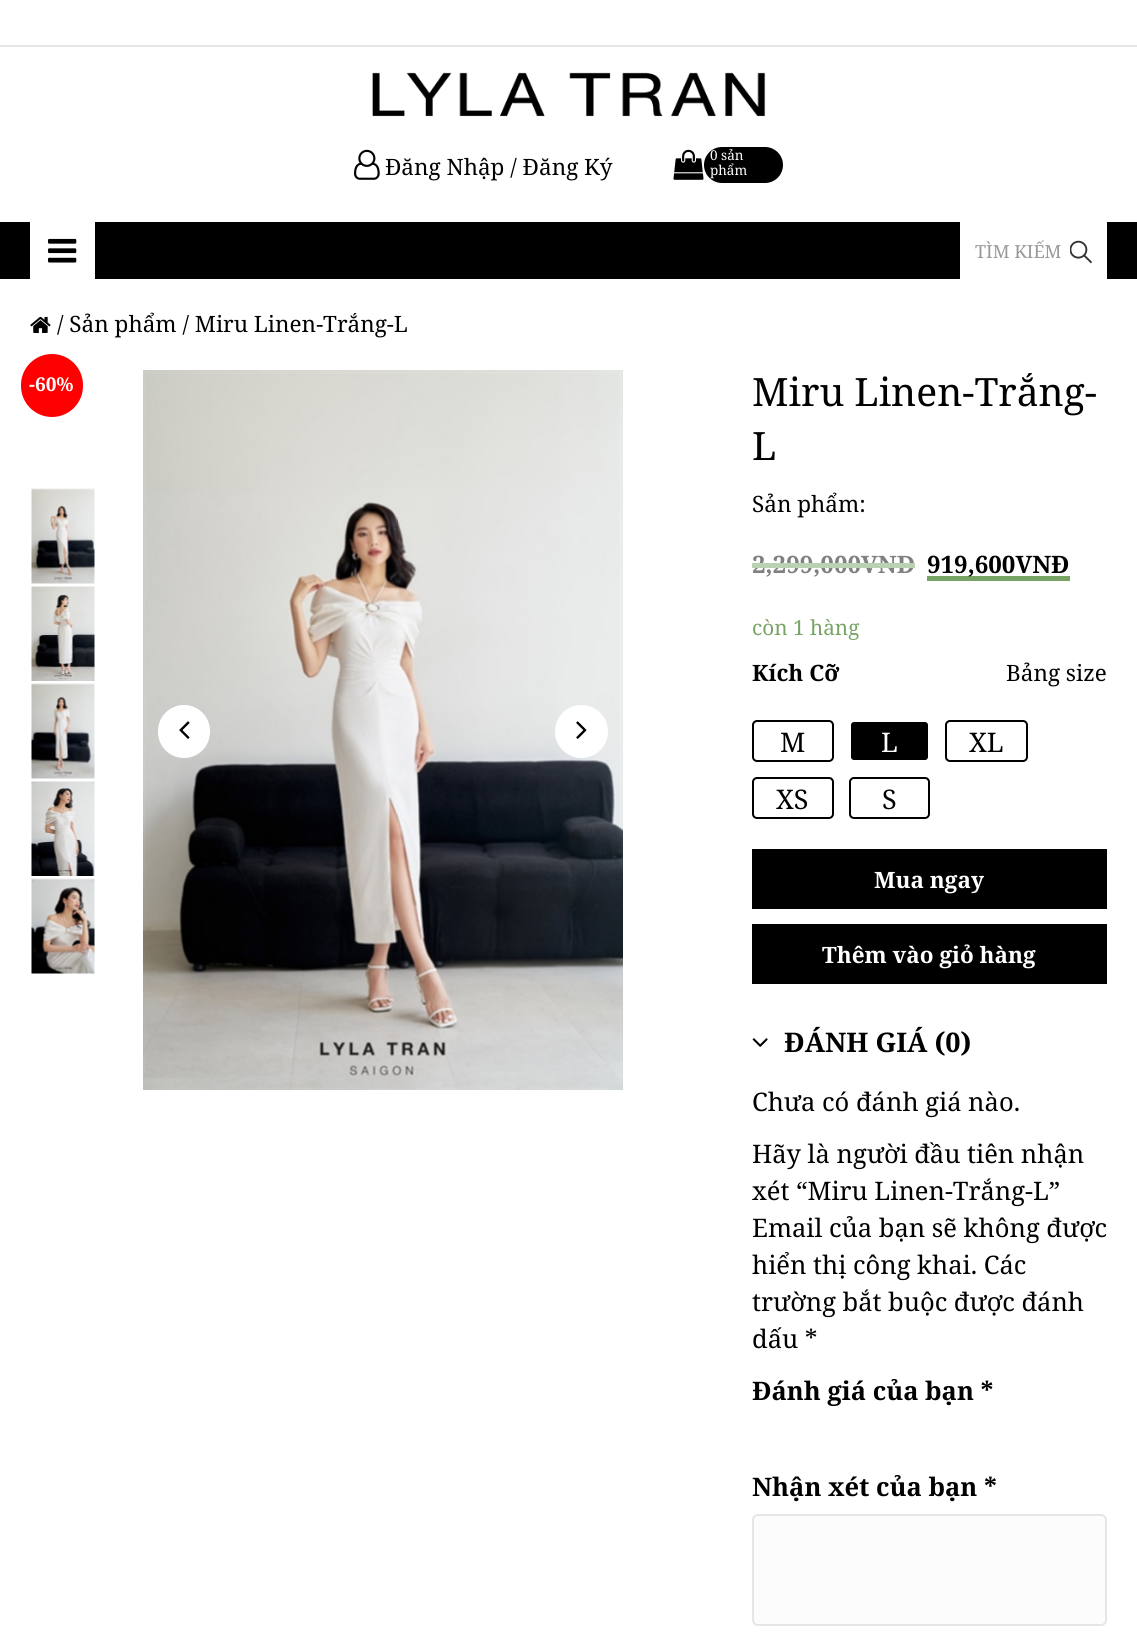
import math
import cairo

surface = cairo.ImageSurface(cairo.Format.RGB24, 1137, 1641)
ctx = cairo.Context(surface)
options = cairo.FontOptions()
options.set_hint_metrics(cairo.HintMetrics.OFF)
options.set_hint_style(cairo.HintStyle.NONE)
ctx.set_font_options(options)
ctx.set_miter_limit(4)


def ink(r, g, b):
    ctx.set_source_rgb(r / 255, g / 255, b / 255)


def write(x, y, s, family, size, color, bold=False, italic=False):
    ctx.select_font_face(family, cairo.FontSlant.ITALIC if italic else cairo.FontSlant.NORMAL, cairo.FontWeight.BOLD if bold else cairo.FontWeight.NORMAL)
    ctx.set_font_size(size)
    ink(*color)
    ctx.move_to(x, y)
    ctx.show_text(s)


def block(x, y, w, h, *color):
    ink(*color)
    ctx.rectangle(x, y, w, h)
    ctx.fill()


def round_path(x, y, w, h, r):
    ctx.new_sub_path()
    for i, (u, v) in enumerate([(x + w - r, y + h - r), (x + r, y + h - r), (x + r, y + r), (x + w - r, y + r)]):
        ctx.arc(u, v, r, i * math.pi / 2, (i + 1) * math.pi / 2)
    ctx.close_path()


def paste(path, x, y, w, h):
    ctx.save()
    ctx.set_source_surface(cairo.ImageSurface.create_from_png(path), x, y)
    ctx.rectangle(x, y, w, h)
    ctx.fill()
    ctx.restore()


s1 = dict(family="Noto Serif", size=22.5, color=(0, 0, 0))
s2 = dict(family="Noto Serif", size=13.5, color=(255, 255, 255))
s3 = dict(family="Noto Serif", size=18, color=(153, 153, 153))
s4 = dict(family="Noto Serif", size=39, color=(0, 0, 0))
s5 = dict(family="Noto Serif", size=24, color=(128, 128, 128), bold=True)
s6 = dict(family="Noto Serif", size=24, color=(0, 0, 0), bold=True)
s7 = dict(family="Noto Serif", size=20.75, color=(119, 164, 100))
s8 = dict(family="Noto Serif", size=22.5, color=(0, 0, 0), bold=True)
s9 = dict(family="Noto Serif", size=27, color=(0, 0, 0))
s10 = dict(family="Noto Serif", size=27, color=(255, 255, 255))
s11 = dict(family="Noto Serif", size=22.5, color=(255, 255, 255), bold=True)
s12 = dict(family="Noto Serif", size=27, color=(0, 0, 0), bold=True)
s13 = dict(family="Noto Serif", size=25.5, color=(0, 0, 0))
s14 = dict(family="Noto Serif", size=25.5, color=(0, 0, 0), bold=True)
s15 = dict(family="Noto Serif", size=19, color=(255, 255, 255), bold=True)

ink(255, 255, 255)
ctx.paint()
block(0, 45, 1137, 2, 230, 230, 230)
paste("pic1.png", 372, 72, 394, 45)
paste("pic2.png", 354, 149, 26, 31)
write(385, 175, "Đăng Nhập / Đăng Ký", **s1)
paste("pic3.png", 673, 149, 31, 31)
round_path(704, 147, 79, 36, 18)
ctx.fill()
write(710, 160, "0 sản", **s2)
write(710, 175, "phẩm", **s2)
block(0, 222, 1137, 57, 0, 0, 0)
block(30, 222, 65, 57, 255, 255, 255)
paste("pic4.png", 48, 238, 29, 25)
block(960, 222, 147, 57, 255, 255, 255)
write(975, 258, "TÌM KIẾM", **s3)
paste("pic5.png", 1070, 240, 22, 24)
paste("pic6.png", 30, 316, 21, 17)
write(57, 332, "/ Sản phẩm / Miru Linen-Trắng-L", **s1)
paste("pic7.png", 31, 488, 64, 96)
paste("pic8.png", 31, 586, 64, 95)
paste("pic9.png", 31, 683, 64, 96)
paste("pic10.png", 31, 781, 64, 95)
paste("pic11.png", 31, 878, 64, 96)
paste("pic12.png", 143, 370, 480, 720)
ink(255, 255, 255)
round_path(158, 705, 52, 53, 26)
ctx.fill()
paste("pic13.png", 179, 721, 11, 18)
ctx.arc(581.5, 731.5, 26.5, 0, 2 * math.pi)
ctx.fill()
paste("pic14.png", 576, 721, 11, 18)
write(752, 406, "Miru Linen-Trắng-", **s4)
write(752, 460, "L", **s4)
write(752, 512, "Sản phẩm:", **s1)
write(752, 573, "2,299,000", **s5)
block(752, 563, 109, 5, 187, 210, 178)
write(861, 573, "VNĐ", **s5)
block(861, 563, 54, 5, 187, 210, 178)
block(927, 576, 143, 5, 119, 164, 100)
write(927, 573, "919,600VNĐ", **s6)
write(752, 635, "còn 1 hàng", **s7)
write(752, 681, "Kích Cỡ", **s8)
write(1006, 681, "Bảng size", **s1)
round_path(753, 721, 80, 40, 4)
ctx.stroke()
write(780, 752, "M", **s9)
round_path(850, 721, 79, 40, 4)
ctx.fill_preserve()
ink(255, 255, 255)
ctx.stroke()
write(881, 752, "L", **s10)
round_path(946, 721, 81, 40, 4)
ink(0, 0, 0)
ctx.stroke()
write(969, 752, "XL", **s9)
round_path(753, 778, 80, 40, 4)
ctx.stroke()
write(776, 809, "XS", **s9)
round_path(850, 778, 79, 40, 4)
ctx.stroke()
write(882, 809, "S", **s9)
block(752, 849, 355, 60, 0, 0, 0)
write(874, 888, "Mua ngay", **s11)
block(752, 924, 355, 60, 0, 0, 0)
write(822, 963, "Thêm vào giỏ hàng", **s11)
paste("pic15.png", 752, 1038, 16, 9)
write(784, 1052, "ĐÁNH GIÁ (0)", **s12)
write(752, 1111, "Chưa có đánh giá nào.", **s13)
write(752, 1163, "Hãy là người đầu tiên nhận", **s13)
write(752, 1200, "xét “Miru Linen-Trắng-L”", **s13)
write(752, 1237, "Email của bạn sẽ không được", **s13)
write(752, 1274, "hiển thị công khai. Các", **s13)
write(752, 1311, "trường bắt buộc được đánh", **s13)
write(752, 1348, "dấu *", **s13)
write(752, 1400, "Đánh giá của bạn *", **s14)
write(752, 1496, "Nhận xét của bạn *", **s14)
ink(252, 252, 252)
round_path(753, 1515, 353, 110, 5)
ctx.fill_preserve()
ink(230, 230, 230)
ctx.stroke()
ink(255, 0, 0)
round_path(21, 354, 62, 63, 31)
ctx.fill()
write(29, 391, "-60%", **s15)
surface.write_to_png("screenshot.png")
